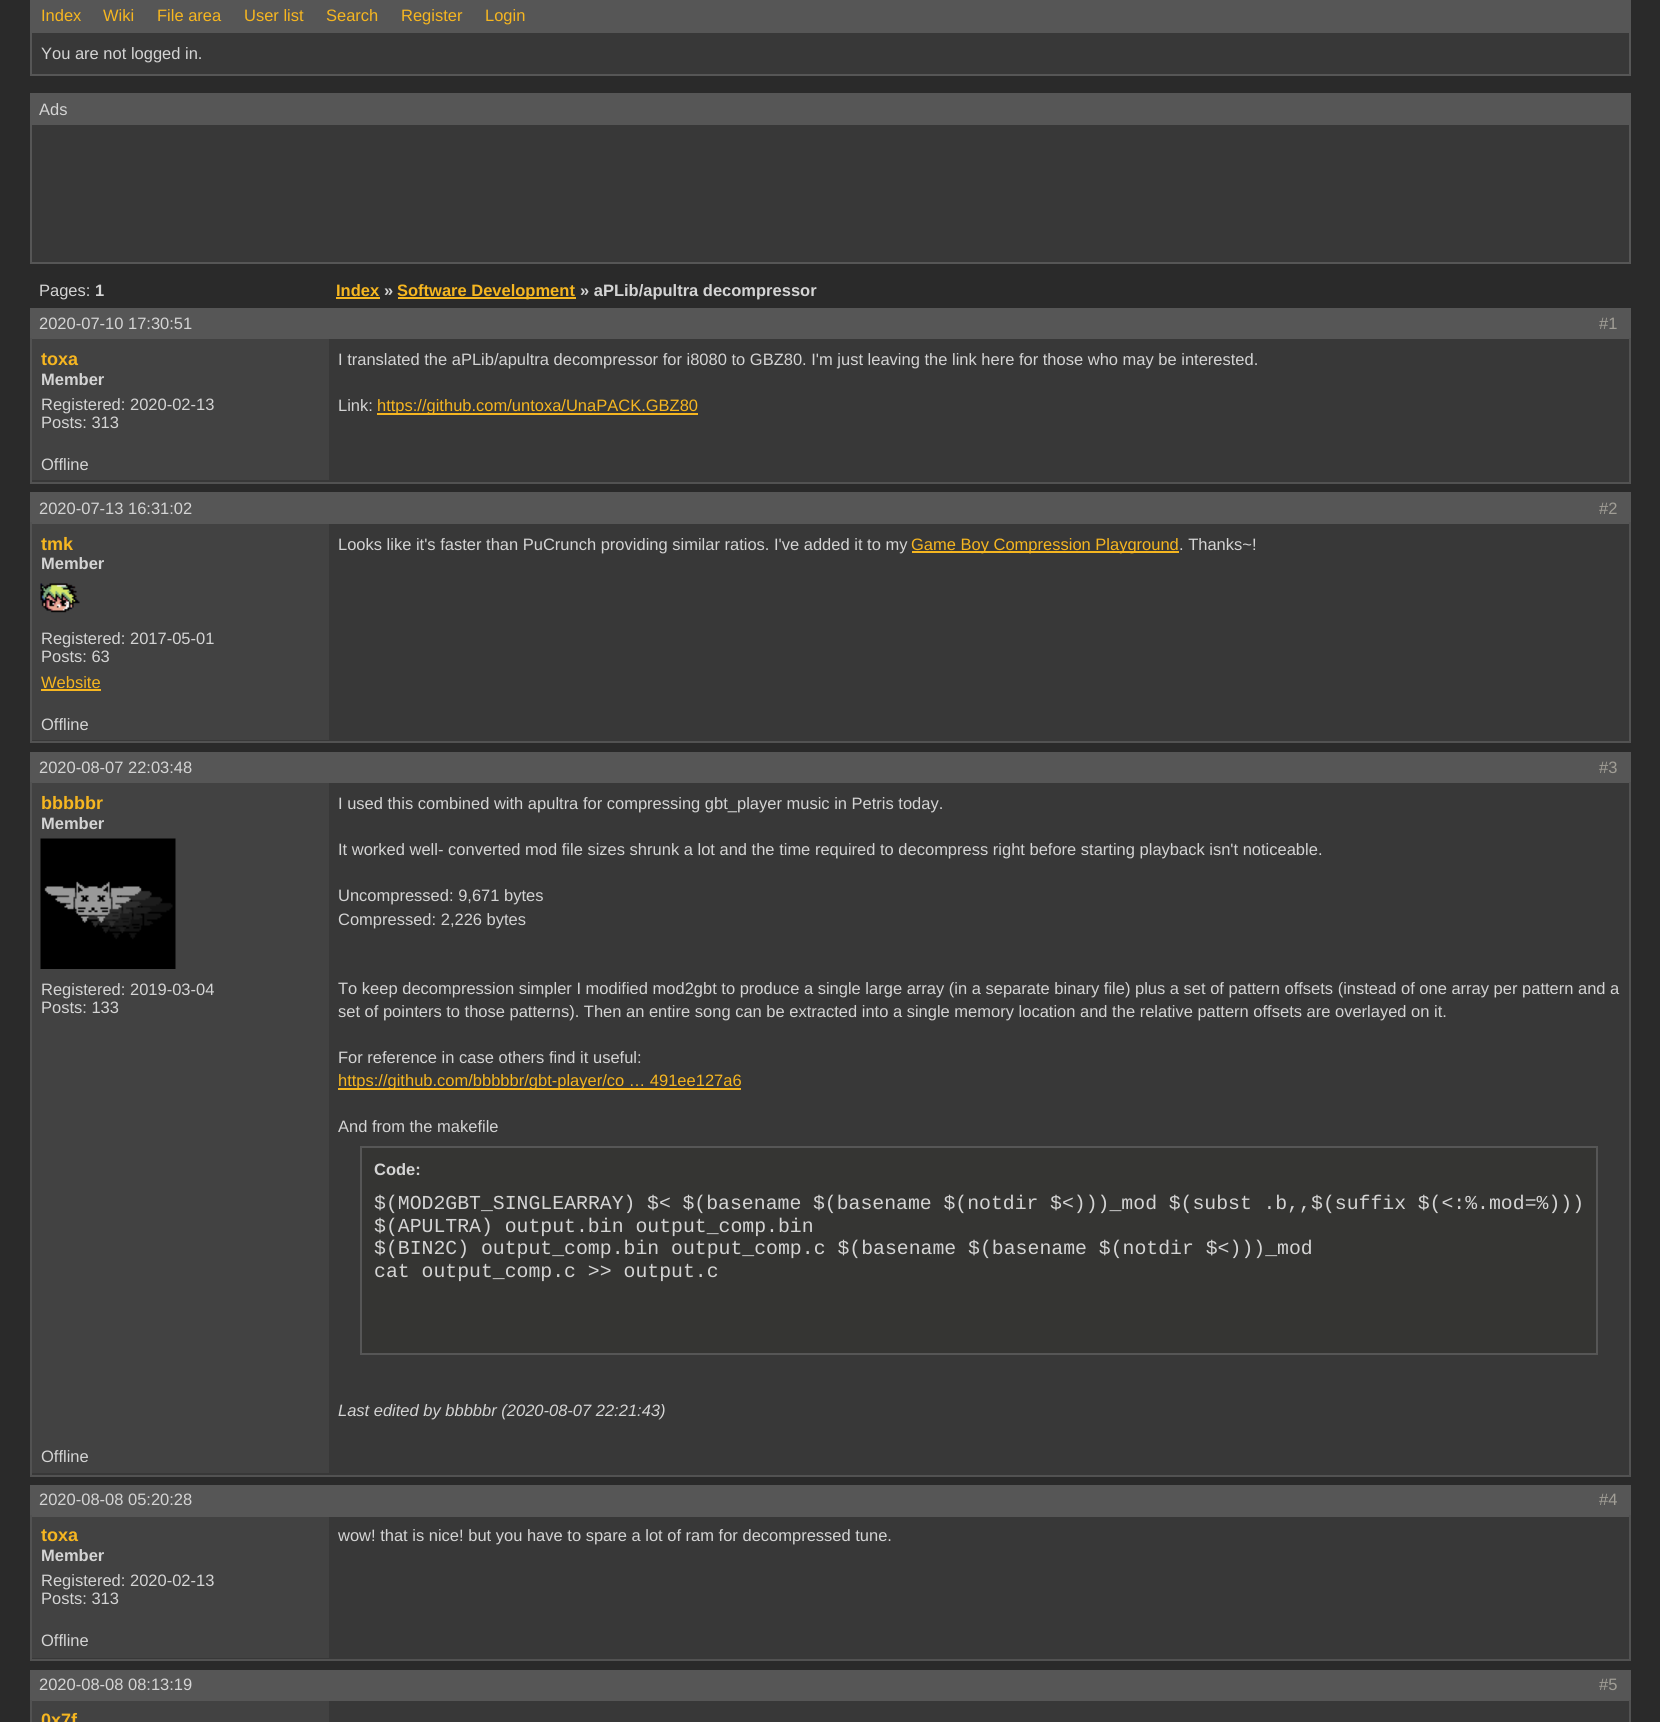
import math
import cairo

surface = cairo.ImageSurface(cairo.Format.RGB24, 1660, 1722)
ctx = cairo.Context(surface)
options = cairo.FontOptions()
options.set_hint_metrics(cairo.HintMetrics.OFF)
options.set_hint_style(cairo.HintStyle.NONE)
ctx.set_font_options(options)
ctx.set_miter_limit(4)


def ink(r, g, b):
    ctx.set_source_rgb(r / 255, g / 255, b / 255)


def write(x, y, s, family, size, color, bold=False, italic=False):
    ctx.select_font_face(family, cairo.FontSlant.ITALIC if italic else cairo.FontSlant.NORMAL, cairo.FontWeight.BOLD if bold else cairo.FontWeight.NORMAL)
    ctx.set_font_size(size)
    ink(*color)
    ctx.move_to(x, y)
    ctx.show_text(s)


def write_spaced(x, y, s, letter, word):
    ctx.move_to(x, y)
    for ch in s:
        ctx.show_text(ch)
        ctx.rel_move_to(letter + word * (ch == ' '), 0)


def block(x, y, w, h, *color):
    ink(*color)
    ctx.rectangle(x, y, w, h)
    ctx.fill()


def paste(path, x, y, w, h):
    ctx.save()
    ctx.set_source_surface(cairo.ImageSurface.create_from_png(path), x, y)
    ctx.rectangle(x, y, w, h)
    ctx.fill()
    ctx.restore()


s1 = dict(family="Liberation Sans", size=16.5, color=(246, 182, 32))
s2 = dict(family="Liberation Sans", size=16.5, color=(212, 212, 212))
s3 = dict(family="Liberation Sans", size=16.5, color=(212, 212, 212), bold=True)
s4 = dict(family="Liberation Sans", size=16.5, color=(246, 182, 32), bold=True)
s5 = dict(family="Liberation Sans", size=16.5, color=(161, 158, 150))
s6 = dict(family="Liberation Sans", size=18, color=(246, 182, 32), bold=True)
s7 = dict(family="Liberation Mono", size=19.8, color=(212, 212, 212))
s8 = dict(family="Liberation Sans", size=16.5, color=(212, 212, 212), italic=True)

ink(42, 42, 42)
ctx.paint()
block(32, 33, 1597, 41, 56, 56, 56)
block(1629, 0, 2, 75, 86, 86, 86)
block(30, 74, 1601, 2, 86, 86, 86)
block(30, 0, 2, 75, 86, 86, 86)
block(32, 0, 1597, 33, 86, 86, 86)
write(41, 21, "Index", **s1)
write(103, 21, "Wiki", **s1)
write(157, 21, "File area", **s1)
write(244, 21, "User list", **s1)
write(326, 21, "Search", **s1)
write(401, 21, "Register", **s1)
write(485, 21, "Login", **s1)
write(41, 59, "You are not logged in.", **s2)
block(30, 93, 1601, 30, 86, 86, 86)
write(39, 115, "Ads", **s2)
ink(56, 56, 56)
ctx.rectangle(31, 124, 1599, 139)
ctx.fill_preserve()
ink(86, 86, 86)
ctx.stroke()
write(39, 296, "Pages:", **s2)
write(95, 296, "1", **s3)
write(336, 296, "Index", **s4)
block(336, 297, 44, 2, 246, 182, 32)
write(384, 296, "»", **s3)
block(398, 297, 178, 2, 246, 182, 32)
write(397, 296, "Software Development", **s4)
write(580, 296, "» aPLib/apultra decompressor", **s3)
block(32, 428, 1597, 54, 56, 56, 56)
block(30, 308, 1601, 31, 86, 86, 86)
write(39, 329, "2020-07-10 17:30:51", **s2)
write(1599, 329, "#1", **s5)
block(1629, 338, 2, 145, 82, 82, 82)
block(30, 482, 1601, 2, 82, 82, 82)
block(30, 338, 2, 145, 82, 82, 82)
block(32, 339, 297, 141, 66, 66, 66)
write(41, 365, "toxa", **s6)
write(41, 385, "Member", **s3)
write(41, 410, "Registered: 2020-02-13", **s2)
write(41, 428, "Posts: 313", **s2)
block(329, 339, 1300, 89, 56, 56, 56)
write(338, 365, "I translated the aPLib/apultra decompressor for i8080 to GBZ80. I'm just leaving the link here for those who may be interested.", **s2)
write(338, 411, "Link:", **s2)
block(377, 413, 321, 2, 246, 182, 32)
write(377, 411, "https://github.com/untoxa/UnaPACK.GBZ80", **s1)
write(41, 470, "Offline", **s2)
block(32, 524, 1597, 217, 56, 56, 56)
block(30, 492, 1601, 32, 86, 86, 86)
write(39, 514, "2020-07-13 16:31:02", **s2)
write(1599, 514, "#2", **s5)
block(1629, 522, 2, 221, 82, 82, 82)
block(30, 741, 1601, 2, 82, 82, 82)
block(30, 522, 2, 221, 82, 82, 82)
block(32, 524, 297, 216, 66, 66, 66)
write(41, 550, "tmk", **s6)
write(41, 569, "Member", **s3)
paste("pic1.png", 40, 583, 40, 30)
write(41, 644, "Registered: 2017-05-01", **s2)
write(41, 662, "Posts: 63", **s2)
write(41, 688, "Website", **s1)
block(41, 689, 60, 2, 246, 182, 32)
write(338, 550, "Looks like it's faster than PuCrunch providing similar ratios. I've added it to my", **s2)
block(912, 551, 267, 2, 246, 182, 32)
write(911, 550, "Game Boy Compression Playground", **s1)
write(1179, 550, ". Thanks~!", **s2)
write(41, 730, "Offline", **s2)
block(32, 1473, 1597, 2, 56, 56, 56)
block(30, 752, 1601, 31, 86, 86, 86)
write(39, 773, "2020-08-07 22:03:48", **s2)
write(1599, 773, "#3", **s5)
block(1629, 782, 2, 694, 82, 82, 82)
block(30, 1475, 1601, 2, 82, 82, 82)
block(30, 782, 2, 694, 82, 82, 82)
block(32, 783, 297, 690, 66, 66, 66)
write(41, 809, "bbbbbr", **s6)
write(41, 829, "Member", **s3)
paste("pic2.png", 40, 838, 136, 131)
write(41, 995, "Registered: 2019-03-04", **s2)
write(41, 1013, "Posts: 133", **s2)
block(329, 783, 1300, 690, 56, 56, 56)
write(338, 809, "I used this combined with apultra for compressing gbt_player music in Petris today.", **s2)
write(338, 855, "It worked well- converted mod file sizes shrunk a lot and the time required to decompress right before starting playback isn't noticeable.", **s2)
write(338, 901, "Uncompressed: 9,671 bytes", **s2)
write(338, 925, "Compressed: 2,226 bytes", **s2)
write(338, 994, "To keep decompression simpler I modified mod2gbt to produce a single large array (in a separate binary file) plus a set of pattern offsets (instead of one array per pattern and a", **s2)
write(338, 1017, "set of pointers to those patterns). Then an entire song can be extracted into a single memory location and the relative pattern offsets are overlayed on it.", **s2)
write(338, 1063, "For reference in case others find it useful:", **s2)
block(338, 1088, 403, 2, 246, 182, 32)
write(338, 1086, "https://github.com/bbbbbr/gbt-player/co … 491ee127a6", **s1)
write(338, 1132, "And from the makefile", **s2)
ink(53, 53, 51)
ctx.rectangle(361, 1147, 1236, 207)
ctx.fill_preserve()
ink(86, 86, 86)
ctx.stroke()
write(374, 1175, "Code:", **s3)
ctx.select_font_face("Liberation Mono")
ctx.set_font_size(19.8)
write_spaced(374, 1209, "$(MOD2GBT_SINGLEARRAY) $< $(basename $(basename $(notdir $<)))_mod $(subst .b,,$(suffix $(<:%.mod=%)))", 0, -0.25)
write(374, 1232, "$(APULTRA) output.bin output_comp.bin", **s7)
write(374, 1254, "$(BIN2C) output_comp.bin output_comp.c $(basename $(basename $(notdir $<)))_mod", **s7)
write(374, 1277, "cat output_comp.c >> output.c", **s7)
write(338, 1416, "Last edited by bbbbbr (2020-08-07 22:21:43)", **s8)
write(41, 1462, "Offline", **s2)
block(32, 1517, 1597, 142, 56, 56, 56)
block(30, 1485, 1601, 32, 86, 86, 86)
write(39, 1505, "2020-08-08 05:20:28", **s2)
write(1599, 1505, "#4", **s5)
block(1629, 1515, 2, 146, 82, 82, 82)
block(30, 1659, 1601, 2, 82, 82, 82)
block(30, 1515, 2, 146, 82, 82, 82)
block(32, 1517, 297, 141, 66, 66, 66)
write(41, 1541, "toxa", **s6)
write(41, 1561, "Member", **s3)
write(41, 1586, "Registered: 2020-02-13", **s2)
write(41, 1604, "Posts: 313", **s2)
write(338, 1541, "wow! that is nice! but you have to spare a lot of ram for decompressed tune.", **s2)
write(41, 1646, "Offline", **s2)
block(30, 1670, 1601, 31, 86, 86, 86)
write(39, 1690, "2020-08-08 08:13:19", **s2)
write(1599, 1690, "#5", **s5)
block(1629, 1700, 2, 22, 82, 82, 82)
block(30, 1700, 2, 22, 82, 82, 82)
block(329, 1701, 1300, 21, 56, 56, 56)
block(32, 1701, 297, 21, 66, 66, 66)
write(41, 1726, "0x7f", **s6)
surface.write_to_png("screenshot.png")
